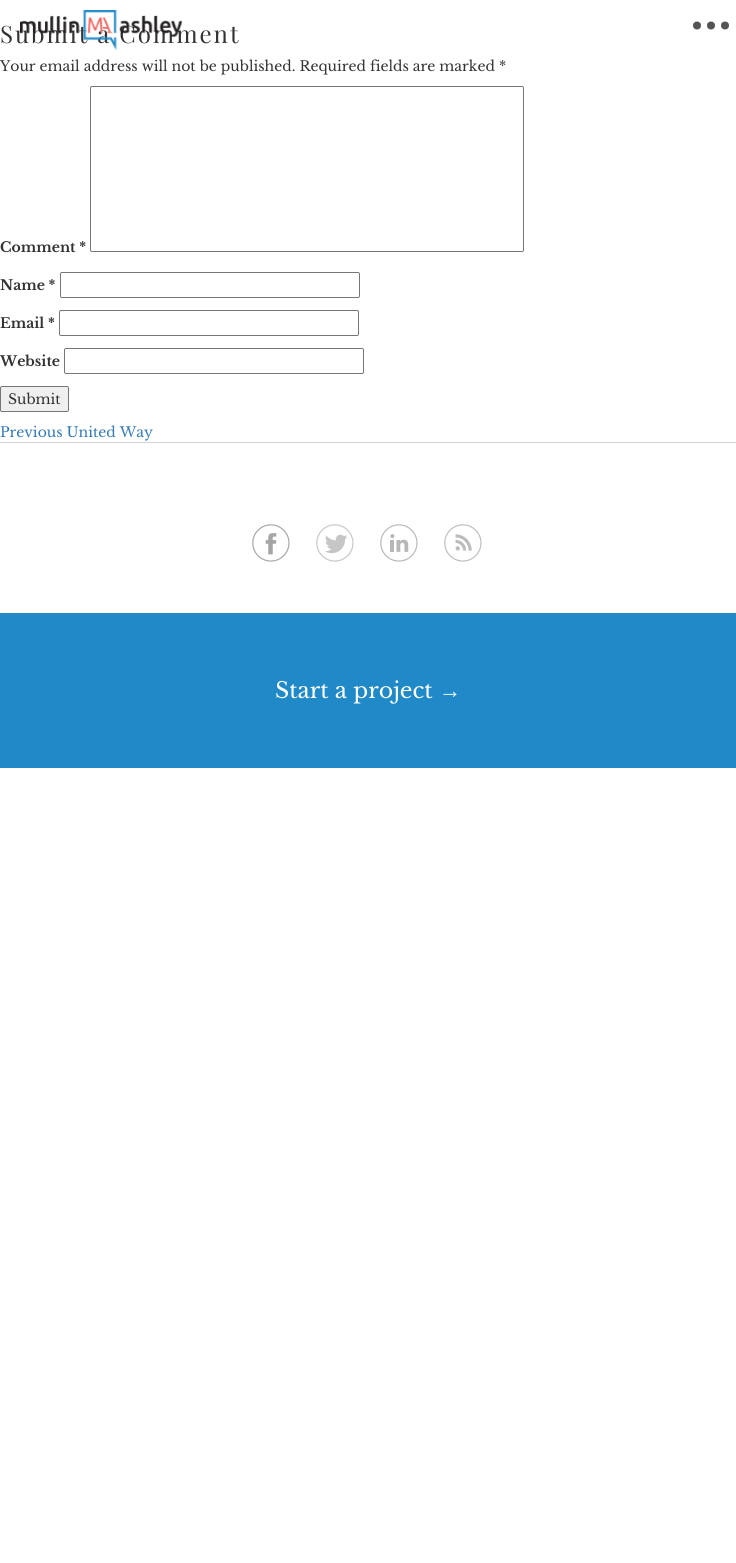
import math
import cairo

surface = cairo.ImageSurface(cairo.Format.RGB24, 736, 1563)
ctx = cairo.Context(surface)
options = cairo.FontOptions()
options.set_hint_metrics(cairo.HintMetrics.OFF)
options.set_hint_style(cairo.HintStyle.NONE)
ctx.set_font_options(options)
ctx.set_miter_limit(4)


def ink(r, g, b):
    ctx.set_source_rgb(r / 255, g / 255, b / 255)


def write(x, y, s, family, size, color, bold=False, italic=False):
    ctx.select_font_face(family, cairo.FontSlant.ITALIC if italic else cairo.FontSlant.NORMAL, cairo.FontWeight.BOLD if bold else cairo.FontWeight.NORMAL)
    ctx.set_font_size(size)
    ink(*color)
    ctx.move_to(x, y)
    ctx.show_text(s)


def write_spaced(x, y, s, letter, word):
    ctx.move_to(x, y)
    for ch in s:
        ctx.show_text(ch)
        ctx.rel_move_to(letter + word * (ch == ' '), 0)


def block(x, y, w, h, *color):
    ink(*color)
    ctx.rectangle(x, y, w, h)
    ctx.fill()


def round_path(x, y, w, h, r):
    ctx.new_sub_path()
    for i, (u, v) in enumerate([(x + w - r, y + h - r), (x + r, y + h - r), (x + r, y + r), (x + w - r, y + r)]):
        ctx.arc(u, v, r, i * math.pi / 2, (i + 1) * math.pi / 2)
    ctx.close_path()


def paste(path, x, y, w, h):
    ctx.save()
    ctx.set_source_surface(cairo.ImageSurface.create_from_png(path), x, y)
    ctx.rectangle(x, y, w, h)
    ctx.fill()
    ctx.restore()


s1 = dict(family="Libre Baskerville", size=14, color=(51, 51, 51))
s2 = dict(family="Libre Baskerville", size=14, color=(51, 51, 51), bold=True)
s3 = dict(family="Libre Baskerville", size=14, color=(51, 122, 183))
s4 = dict(family="Libre Baskerville", size=22, color=(255, 255, 255))
s5 = dict(family="Liberation Serif", size=22, color=(255, 255, 255))

ink(255, 255, 255)
ctx.paint()
ctx.select_font_face("Playfair Display")
ctx.set_font_size(24)
ink(51, 51, 51)
write_spaced(0, 43, "Submit a Comment", 2, 0)
paste("pic1.png", 20, 10, 162, 40)
ink(84, 84, 84)
ctx.arc(711, 25.5, 4, 0, 2 * math.pi)
ctx.fill()
ctx.arc(725, 25.5, 4, 0, 2 * math.pi)
ctx.fill()
ctx.arc(697, 25.5, 4, 0, 2 * math.pi)
ctx.fill()
write(0, 71, "Your email address will not be published. Required fields are marked *", **s1)
write(0, 252, "Comment *", **s2)
round_path(90.5, 86.5, 433, 165, 1.5)
ink(118, 118, 118)
ctx.set_line_width(1)
ctx.stroke()
write(0, 290, "Name *", **s2)
round_path(60.5, 272.5, 299, 25, 1.5)
ink(118, 118, 118)
ctx.stroke()
write(0, 328, "Email *", **s2)
round_path(59.5, 310.5, 299, 25, 1.5)
ink(118, 118, 118)
ctx.stroke()
write(0, 366, "Website", **s2)
round_path(64.5, 348.5, 299, 25, 1.5)
ink(118, 118, 118)
ctx.stroke()
ink(239, 239, 239)
round_path(0.5, 386.5, 68, 25, 1.5)
ctx.fill_preserve()
ink(118, 118, 118)
ctx.stroke()
write(8, 404, "Submit", **s1)
write(0, 437, "Previous United Way", **s3)
block(0, 442, 736, 1, 211, 211, 211)
paste("pic2.png", 252, 524, 38, 38)
paste("pic3.png", 316, 524, 38, 38)
paste("pic4.png", 380, 524, 38, 38)
paste("pic5.png", 444, 524, 38, 38)
block(0, 613, 736, 155, 32, 137, 199)
write(275, 698, "Start a project", **s4)
write(439, 698, "→", **s5)
surface.write_to_png("screenshot.png")
